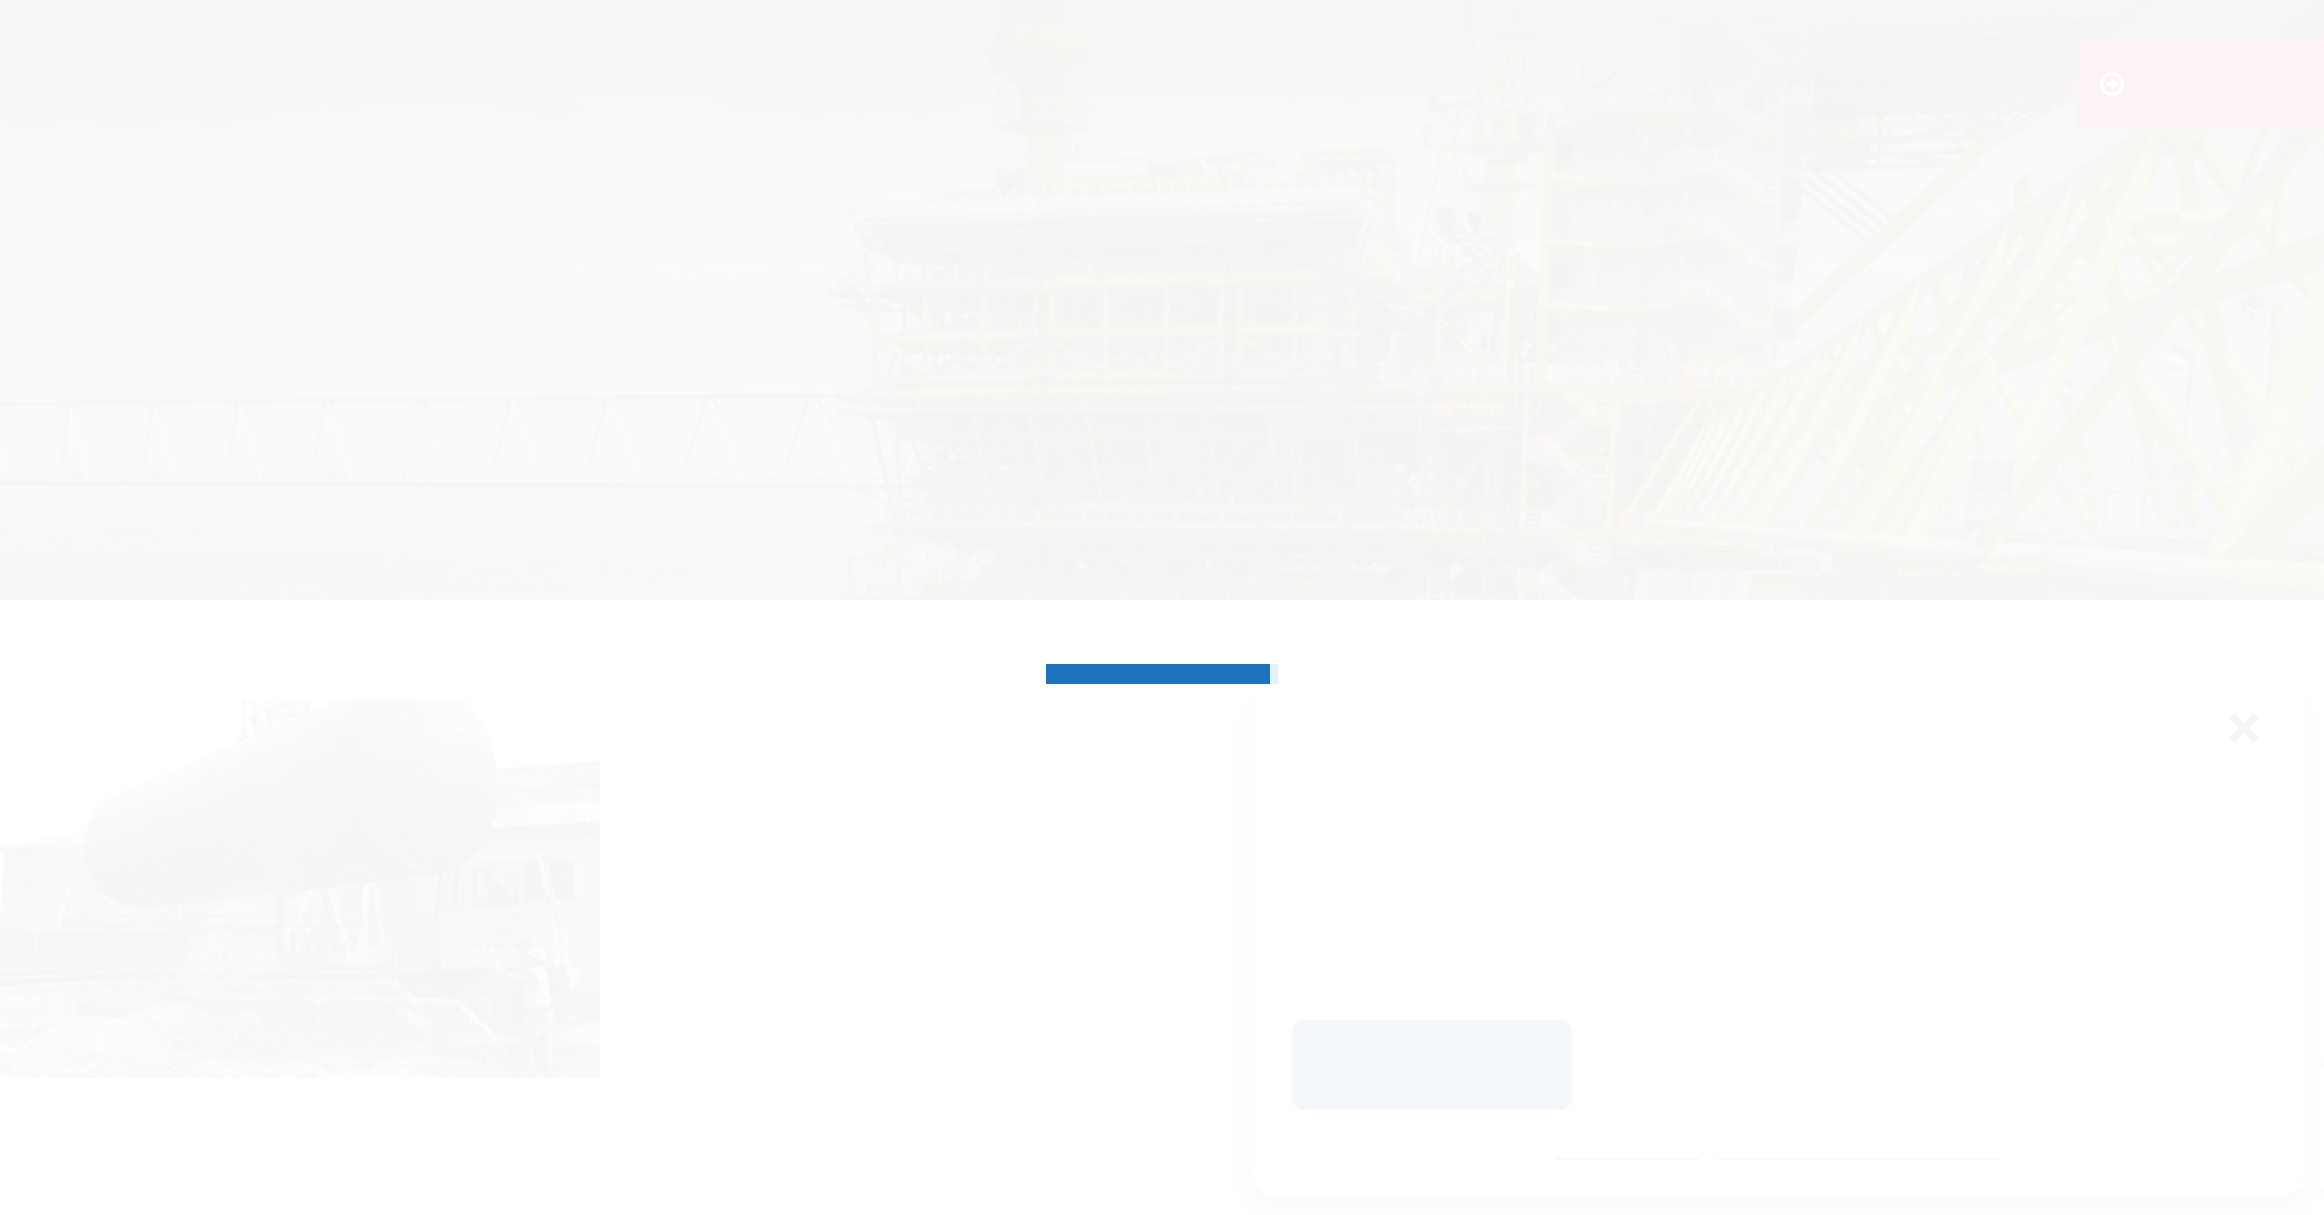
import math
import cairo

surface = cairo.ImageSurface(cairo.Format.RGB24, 2324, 1215)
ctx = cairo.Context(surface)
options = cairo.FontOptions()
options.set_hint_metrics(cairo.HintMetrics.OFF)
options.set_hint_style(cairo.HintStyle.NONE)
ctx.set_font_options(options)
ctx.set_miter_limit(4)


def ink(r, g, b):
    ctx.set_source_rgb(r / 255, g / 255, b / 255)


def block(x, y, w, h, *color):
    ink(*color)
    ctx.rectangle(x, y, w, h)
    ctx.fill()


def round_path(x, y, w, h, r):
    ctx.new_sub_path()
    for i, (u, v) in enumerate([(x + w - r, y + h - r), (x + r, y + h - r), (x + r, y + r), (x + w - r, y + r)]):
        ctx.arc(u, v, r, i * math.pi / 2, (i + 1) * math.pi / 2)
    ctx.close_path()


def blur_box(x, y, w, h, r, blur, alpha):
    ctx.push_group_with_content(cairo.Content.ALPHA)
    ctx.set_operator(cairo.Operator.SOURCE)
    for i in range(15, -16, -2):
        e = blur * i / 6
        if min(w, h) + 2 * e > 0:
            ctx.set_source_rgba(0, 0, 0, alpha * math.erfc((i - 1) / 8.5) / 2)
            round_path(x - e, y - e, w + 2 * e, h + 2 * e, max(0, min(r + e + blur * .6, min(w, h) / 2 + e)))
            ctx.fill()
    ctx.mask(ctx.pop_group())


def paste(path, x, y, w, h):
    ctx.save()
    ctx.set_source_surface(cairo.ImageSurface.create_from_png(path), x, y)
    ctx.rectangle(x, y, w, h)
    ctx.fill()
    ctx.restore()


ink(255, 255, 255)
ctx.paint()
paste("pic1.png", 0, 0, 2324, 600)
paste("pic3.png", 0, 700, 600, 378)
ctx.set_source_rgba(1, 1, 1, 0.95)
ctx.rectangle(0, 0, 1162, 1078)
ctx.fill()
block(2078, 38, 246, 90, 227, 0, 26)
paste("pic2.png", 2100, 72, 24, 24)
ink(0, 0, 0)
blur_box(1252, 688, 1052, 520, 24, 6, 0.23)
blur_box(1252, 696, 1052, 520, 24, 20, 0.19)
ctx.save()
ctx.set_fill_rule(cairo.FillRule.EVEN_ODD)
ctx.new_path()
ctx.move_to(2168, 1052)
ctx.line_to(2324, 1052)
ctx.line_to(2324, 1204)
ctx.line_to(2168, 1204)
ctx.close_path()
ctx.move_to(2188, 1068)
ctx.line_to(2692, 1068)
ctx.curve_to(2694, 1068, 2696, 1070, 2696, 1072)
ctx.line_to(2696, 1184)
ctx.curve_to(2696, 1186, 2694, 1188, 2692, 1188)
ctx.line_to(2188, 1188)
ctx.curve_to(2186, 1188, 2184, 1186, 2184, 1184)
ctx.line_to(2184, 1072)
ctx.curve_to(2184, 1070, 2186, 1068, 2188, 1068)
ctx.close_path()
ctx.clip()
ink(128, 128, 128)
blur_box(2184, 1068, 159, 120, 4, 5, 1)
ctx.restore()
ink(255, 255, 255)
round_path(1252, 676, 1052, 520, 24)
ctx.fill()
paste("pic4.png", 2230, 714, 28, 28)
ink(30, 115, 190)
round_path(1293, 1021, 278, 88, 11)
ctx.fill_preserve()
ctx.stroke()
ink(249, 249, 249)
round_path(1593, 1021, 278, 88, 11)
ctx.fill_preserve()
ink(242, 242, 242)
ctx.stroke()
ink(249, 249, 249)
round_path(1893, 1021, 370, 88, 11)
ctx.fill_preserve()
ink(242, 242, 242)
ctx.stroke()
block(1556, 1158, 142, 2, 30, 115, 190)
block(1718, 1158, 282, 2, 30, 115, 190)
ctx.set_source_rgba(1, 1, 1, 0.95)
ctx.rectangle(1162, 0, 1162, 1215)
ctx.fill()
block(1046, 664, 224, 20, 30, 115, 190)
block(1270, 664, 8, 20, 232, 241, 248)
surface.write_to_png("screenshot.png")
